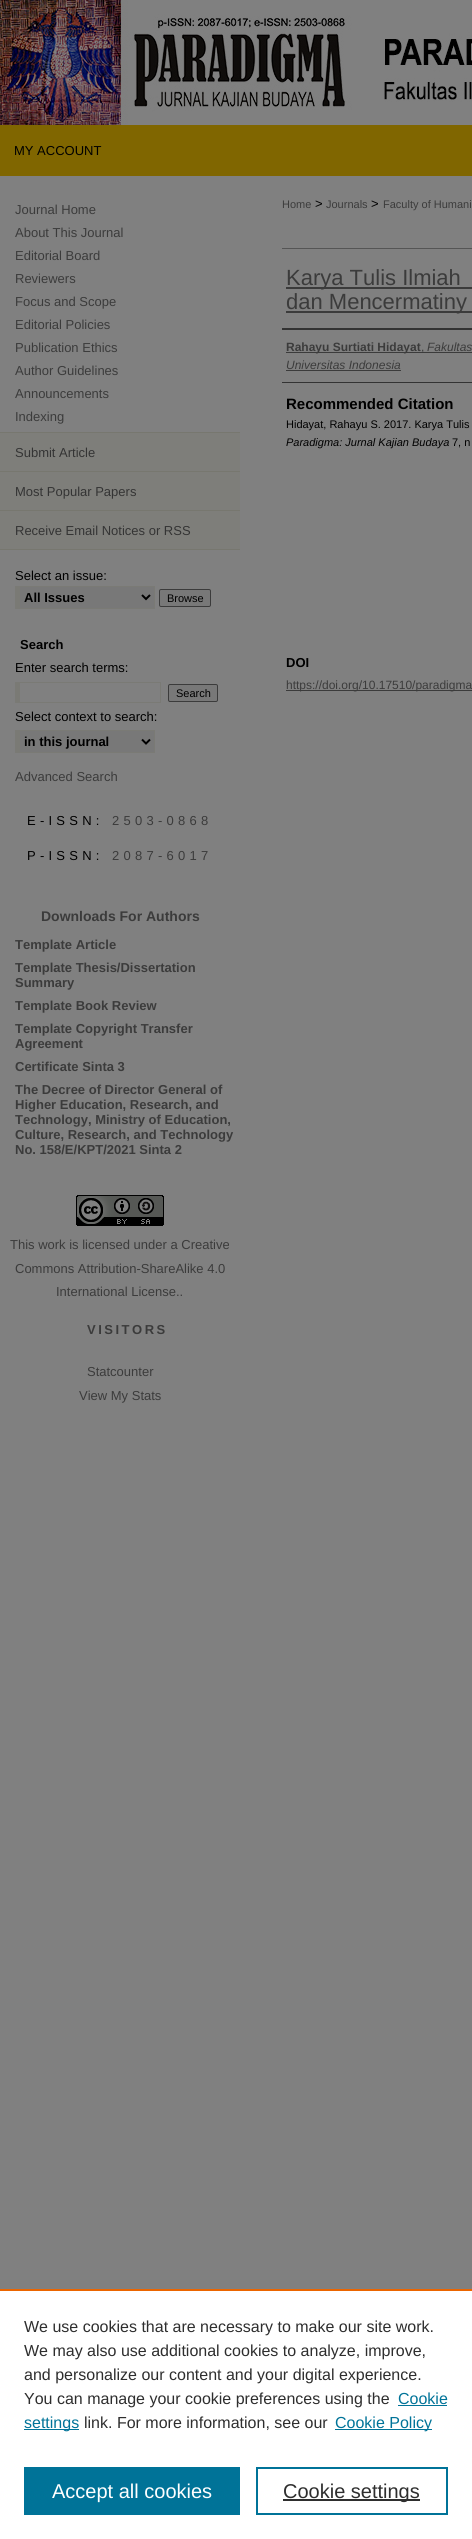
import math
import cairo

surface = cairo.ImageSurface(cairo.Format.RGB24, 472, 2539)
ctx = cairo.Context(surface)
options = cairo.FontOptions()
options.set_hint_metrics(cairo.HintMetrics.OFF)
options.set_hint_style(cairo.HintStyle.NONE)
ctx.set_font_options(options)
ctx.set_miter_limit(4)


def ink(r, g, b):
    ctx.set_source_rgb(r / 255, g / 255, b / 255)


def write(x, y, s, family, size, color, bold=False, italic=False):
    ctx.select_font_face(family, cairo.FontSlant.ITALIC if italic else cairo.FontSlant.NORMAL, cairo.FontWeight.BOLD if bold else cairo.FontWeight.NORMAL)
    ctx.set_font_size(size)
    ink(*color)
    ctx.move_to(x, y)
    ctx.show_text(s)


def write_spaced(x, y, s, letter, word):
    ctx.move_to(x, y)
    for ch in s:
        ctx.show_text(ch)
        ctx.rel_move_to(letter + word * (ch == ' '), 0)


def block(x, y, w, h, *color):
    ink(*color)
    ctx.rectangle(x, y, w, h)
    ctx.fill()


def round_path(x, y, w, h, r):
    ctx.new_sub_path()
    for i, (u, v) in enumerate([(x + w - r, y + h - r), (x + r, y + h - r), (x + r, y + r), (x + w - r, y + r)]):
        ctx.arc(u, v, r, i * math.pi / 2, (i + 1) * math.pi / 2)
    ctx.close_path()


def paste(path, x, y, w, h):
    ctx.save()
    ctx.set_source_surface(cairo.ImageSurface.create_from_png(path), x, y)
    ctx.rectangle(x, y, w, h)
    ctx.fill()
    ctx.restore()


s1 = dict(family="Liberation Sans", size=13, color=(0, 0, 0))
s2 = dict(family="Liberation Sans", size=13, color=(59, 59, 59))
s3 = dict(family="Liberation Sans", size=13, color=(52, 52, 52))
s4 = dict(family="Liberation Sans", size=13, color=(0, 0, 0), bold=True)
s5 = dict(family="Liberation Sans", size=11, color=(0, 0, 0))
s6 = dict(family="Liberation Sans", size=14, color=(59, 59, 59), bold=True)
s7 = dict(family="Liberation Sans", size=13, color=(59, 59, 59), bold=True)
s8 = dict(family="Liberation Sans", size=11, color=(59, 59, 59))
s9 = dict(family="Liberation Sans", size=22, color=(59, 59, 59))
s10 = dict(family="Liberation Sans", size=12, color=(59, 59, 59), bold=True)
s11 = dict(family="Liberation Sans", size=12, color=(59, 59, 59))
s12 = dict(family="Liberation Sans", size=12, color=(59, 59, 59), italic=True)
s13 = dict(family="Liberation Sans", size=15, color=(0, 0, 0), bold=True)
s14 = dict(family="Liberation Sans", size=11, color=(0, 0, 0), italic=True)
s15 = dict(family="Liberation Sans", size=16, color=(46, 46, 46))
s16 = dict(family="Liberation Sans", size=16, color=(0, 115, 152))
s17 = dict(family="Liberation Sans", size=20, color=(255, 255, 255))
s18 = dict(family="Liberation Sans", size=20, color=(46, 46, 46))

ink(128, 128, 128)
ctx.paint()
block(0, 125, 472, 51, 128, 102, 0)
paste("pic1.png", 0, 0, 472, 125)
write(14, 155, "MY ACCOUNT", **s1)
write(15, 214, "Journal Home", **s2)
write(15, 237, "About This Journal", **s2)
write(15, 260, "Editorial Board", **s2)
write(15, 283, "Reviewers", **s2)
write(15, 306, "Focus and Scope", **s2)
write(15, 329, "Editorial Policies", **s2)
write(15, 352, "Publication Ethics", **s2)
write(15, 375, "Author Guidelines", **s2)
write(15, 398, "Announcements", **s2)
write(15, 421, "Indexing", **s2)
block(0, 433, 240, 38, 126, 126, 122)
block(0, 432, 240, 1, 119, 119, 111)
block(0, 471, 240, 1, 119, 119, 111)
write(15, 457, "Submit Article", **s3)
block(0, 472, 240, 38, 126, 126, 122)
block(0, 510, 240, 1, 119, 119, 111)
write(15, 496, "Most Popular Papers", **s3)
block(0, 511, 240, 38, 126, 126, 122)
block(0, 549, 240, 1, 119, 119, 111)
write(15, 535, "Receive Email Notices or RSS", **s3)
write(15, 580, "Select an issue:", **s1)
block(20, 587, 134, 21, 120, 120, 120)
block(15, 586, 140, 1, 122, 122, 117)
block(154, 586, 1, 23, 122, 122, 117)
block(15, 608, 140, 1, 122, 122, 117)
block(15, 586, 5, 23, 122, 122, 117)
ctx.new_path()
ctx.move_to(142, 595)
ctx.line_to(146, 599)
ctx.line_to(150, 595)
ink(0, 0, 0)
ctx.stroke()
write(24, 602, "All Issues", **s4)
ink(120, 120, 120)
round_path(159.5, 589.5, 51, 17, 1.5)
ctx.fill_preserve()
ink(59, 59, 59)
ctx.set_line_width(1)
ctx.stroke()
write(167, 602, "Browse", **s5)
write(20, 649, "Search", **s4)
write(15, 672, "Enter search terms:", **s1)
block(15, 682, 146, 1, 122, 122, 117)
block(160, 682, 1, 21, 122, 122, 117)
block(15, 702, 146, 1, 122, 122, 117)
block(15, 682, 5, 21, 122, 122, 117)
ink(120, 120, 120)
round_path(168.5, 684.5, 49, 17, 1.5)
ctx.fill_preserve()
ink(59, 59, 59)
ctx.stroke()
write(176, 697, "Search", **s5)
write(15, 721, "Select context to search:", **s1)
block(20, 731, 134, 21, 120, 120, 120)
block(15, 730, 140, 1, 122, 122, 117)
block(154, 730, 1, 23, 122, 122, 117)
block(15, 752, 140, 1, 122, 122, 117)
block(15, 730, 5, 23, 122, 122, 117)
ctx.new_path()
ctx.move_to(142, 739.5)
ctx.line_to(146, 743.5)
ctx.line_to(150, 739.5)
ink(0, 0, 0)
ctx.set_line_width(2)
ctx.stroke()
write(24, 746, "in this journal", **s4)
write(15, 781, "Advanced Search", **s2)
ink(0, 0, 0)
write_spaced(27, 825, "E-ISSN:", 4.25, 0)
ink(59, 59, 59)
write_spaced(112, 825, "2503-0868", 4.25, 0)
ink(0, 0, 0)
write_spaced(27, 860, "P-ISSN:", 4.25, 0)
ink(59, 59, 59)
write_spaced(112, 860, "2087-6017", 4.25, 0)
write(41, 921, "Downloads For Authors", **s6)
write(15, 949, "Template Article", **s7)
write(15, 972, "Template Thesis/Dissertation", **s7)
write(15, 987, "Summary", **s7)
write(15, 1010, "Template Book Review", **s7)
write(15, 1033, "Template Copyright Transfer", **s7)
write(15, 1048, "Agreement", **s7)
write(15, 1071, "Certificate Sinta 3", **s7)
write(15, 1094, "The Decree of Director General of", **s7)
write(15, 1109, "Higher Education, Research, and", **s7)
write(15, 1124, "Technology, Ministry of Education,", **s7)
write(15, 1139, "Culture, Research, and Technology", **s7)
write(15, 1154, "No. 158/E/KPT/2021 Sinta 2", **s7)
paste("pic2.png", 76, 1195, 88, 31)
write(10, 1249, "This work is licensed under a Creative", **s2)
write(15, 1273, "Commons Attribution-ShareAlike 4.0", **s2)
write(56, 1296, "International License..", **s2)
ctx.select_font_face("Liberation Sans", cairo.FontSlant.NORMAL, cairo.FontWeight.BOLD)
write_spaced(87, 1334, "VISITORS", 2.5, 0)
write(87, 1376, "Statcounter", **s2)
write(79, 1400, "View My Stats", **s2)
write(282, 208, "Home", **s8)
write(315, 208, ">", **s1)
write(326, 208, "Journals", **s8)
write(371, 208, ">", **s1)
write(383, 208, "Faculty of Humani", **s8)
block(282, 248, 190, 1, 85, 85, 85)
block(286, 287, 186, 2, 59, 59, 59)
write(286, 285, "Karya Tulis Ilmiah", **s9)
block(286, 311, 186, 2, 59, 59, 59)
write(286, 309, "dan Mencermatiny", **s9)
block(282, 328, 190, 2, 51, 51, 51)
block(282, 382, 190, 1, 51, 51, 51)
block(286, 352, 186, 1, 59, 59, 59)
write(286, 351, "Rahayu Surtiati Hidayat", **s10)
write(421, 351, ",", **s11)
write(427, 351, "Fakultas", **s12)
write(286, 369, "Universitas Indonesia", **s12)
block(286, 370, 115, 1, 59, 59, 59)
write(286, 409, "Recommended Citation", **s13)
write(286, 428, "Hidayat, Rahayu S. 2017. Karya Tulis", **s5)
write(286, 446, "Paradigma: Jurnal Kajian Budaya", **s14)
write(452, 446, "7, n", **s5)
write(286, 667, "DOI", **s4)
block(286, 690, 186, 1, 59, 59, 59)
write(286, 689, "https://doi.org/10.17510/paradigma", **s11)
block(0, 2291, 472, 248, 255, 255, 255)
block(0, 2289, 472, 2, 235, 101, 0)
write(24, 2332, "We use cookies that are necessary to make our site work.", **s15)
write(24, 2356, "We may also use additional cookies to analyze, improve,", **s15)
write(24, 2380, "and personalize our content and your digital experience.", **s15)
write(24, 2404, "You can manage your cookie preferences using the", **s15)
write(398, 2404, "Cookie", **s16)
block(398, 2405, 49, 1, 0, 115, 152)
block(24, 2429, 55, 1, 0, 115, 152)
write(24, 2428, "settings", **s16)
write(84, 2428, "link. For more information, see our", **s15)
block(335, 2429, 97, 1, 0, 115, 152)
write(335, 2428, "Cookie Policy", **s16)
block(24, 2467, 216, 48, 0, 115, 152)
write(52, 2498, "Accept all cookies", **s17)
ctx.rectangle(257, 2468, 190, 46)
ink(0, 115, 152)
ctx.stroke()
block(283, 2499, 137, 2, 46, 46, 46)
write(283, 2498, "Cookie settings", **s18)
surface.write_to_png("screenshot.png")
